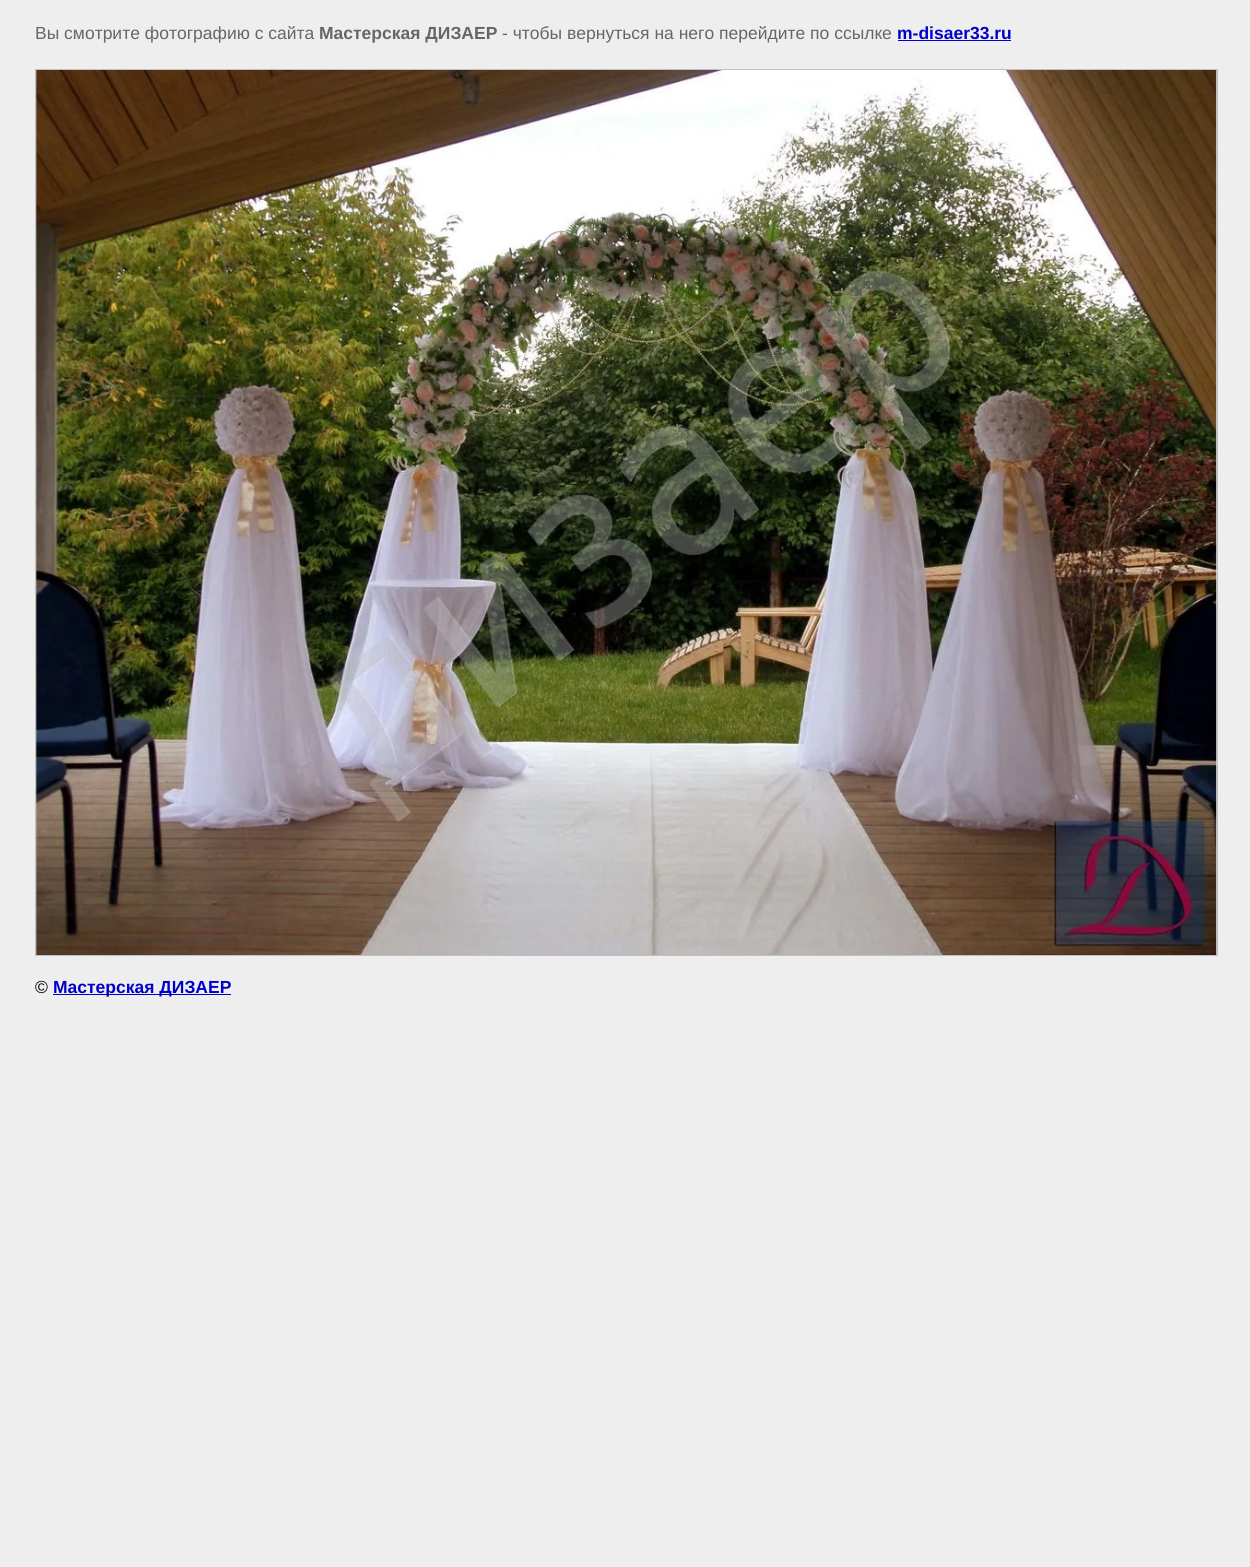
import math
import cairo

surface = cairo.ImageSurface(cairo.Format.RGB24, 1250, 1567)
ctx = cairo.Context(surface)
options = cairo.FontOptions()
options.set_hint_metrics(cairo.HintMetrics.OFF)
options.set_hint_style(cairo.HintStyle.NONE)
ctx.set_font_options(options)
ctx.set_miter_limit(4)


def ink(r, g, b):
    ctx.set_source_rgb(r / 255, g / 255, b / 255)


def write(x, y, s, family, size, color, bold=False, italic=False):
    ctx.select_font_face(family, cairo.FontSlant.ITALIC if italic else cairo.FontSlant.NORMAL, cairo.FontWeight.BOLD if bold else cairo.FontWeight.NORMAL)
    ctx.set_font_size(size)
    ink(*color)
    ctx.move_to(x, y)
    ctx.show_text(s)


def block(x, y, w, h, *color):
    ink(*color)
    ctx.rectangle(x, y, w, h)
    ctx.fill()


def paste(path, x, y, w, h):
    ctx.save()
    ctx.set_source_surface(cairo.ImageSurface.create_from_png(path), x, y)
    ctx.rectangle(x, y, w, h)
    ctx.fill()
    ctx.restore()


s1 = dict(family="Liberation Sans", size=17.5, color=(102, 102, 102))
s2 = dict(family="Liberation Sans", size=17.5, color=(102, 102, 102), bold=True)
s3 = dict(family="Liberation Sans", size=17.5, color=(0, 0, 204), bold=True)
s4 = dict(family="Liberation Sans", size=17.5, color=(0, 0, 0))

ink(238, 238, 238)
ctx.paint()
write(35, 39, "Вы смотрите фотографию с сайта", **s1)
write(319, 39, "Мастерская ДИЗАЕР", **s2)
write(502, 39, "- чтобы вернуться на него перейдите по ссылке", **s1)
write(897, 39, "m-disaer33.ru", **s3)
block(898, 40, 113, 1, 0, 0, 204)
ctx.rectangle(35.5, 69.5, 1182, 886)
ink(192, 192, 192)
ctx.set_line_width(1)
ctx.stroke()
paste("pic1.png", 36, 70, 1181, 885)
write(35, 993, "©", **s4)
block(53, 994, 178, 1, 0, 0, 204)
write(53, 993, "Мастерская ДИЗАЕР", **s3)
surface.write_to_png("screenshot.png")
